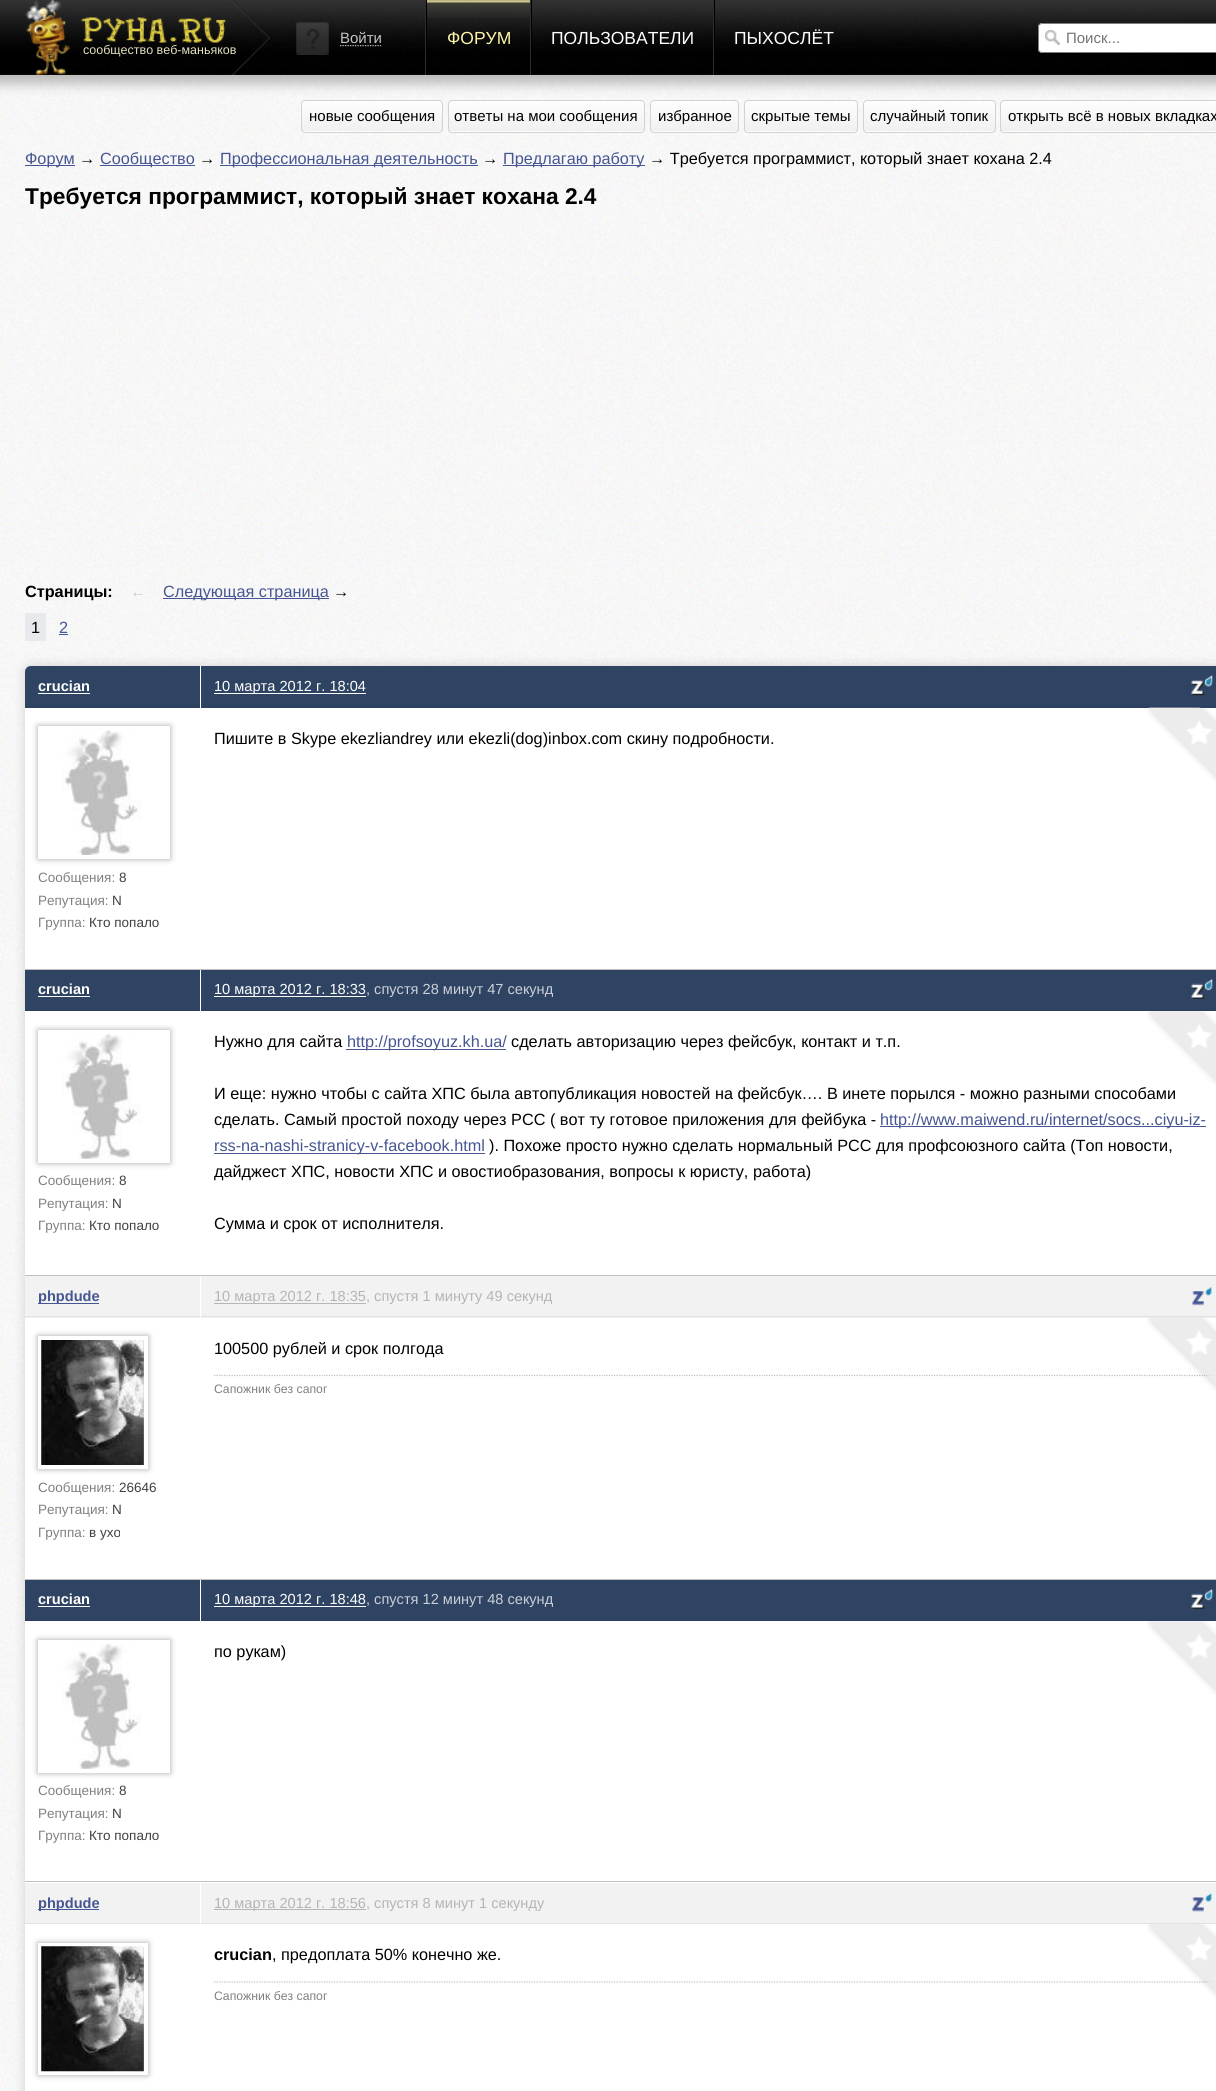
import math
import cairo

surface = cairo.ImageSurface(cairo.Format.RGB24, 1216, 2091)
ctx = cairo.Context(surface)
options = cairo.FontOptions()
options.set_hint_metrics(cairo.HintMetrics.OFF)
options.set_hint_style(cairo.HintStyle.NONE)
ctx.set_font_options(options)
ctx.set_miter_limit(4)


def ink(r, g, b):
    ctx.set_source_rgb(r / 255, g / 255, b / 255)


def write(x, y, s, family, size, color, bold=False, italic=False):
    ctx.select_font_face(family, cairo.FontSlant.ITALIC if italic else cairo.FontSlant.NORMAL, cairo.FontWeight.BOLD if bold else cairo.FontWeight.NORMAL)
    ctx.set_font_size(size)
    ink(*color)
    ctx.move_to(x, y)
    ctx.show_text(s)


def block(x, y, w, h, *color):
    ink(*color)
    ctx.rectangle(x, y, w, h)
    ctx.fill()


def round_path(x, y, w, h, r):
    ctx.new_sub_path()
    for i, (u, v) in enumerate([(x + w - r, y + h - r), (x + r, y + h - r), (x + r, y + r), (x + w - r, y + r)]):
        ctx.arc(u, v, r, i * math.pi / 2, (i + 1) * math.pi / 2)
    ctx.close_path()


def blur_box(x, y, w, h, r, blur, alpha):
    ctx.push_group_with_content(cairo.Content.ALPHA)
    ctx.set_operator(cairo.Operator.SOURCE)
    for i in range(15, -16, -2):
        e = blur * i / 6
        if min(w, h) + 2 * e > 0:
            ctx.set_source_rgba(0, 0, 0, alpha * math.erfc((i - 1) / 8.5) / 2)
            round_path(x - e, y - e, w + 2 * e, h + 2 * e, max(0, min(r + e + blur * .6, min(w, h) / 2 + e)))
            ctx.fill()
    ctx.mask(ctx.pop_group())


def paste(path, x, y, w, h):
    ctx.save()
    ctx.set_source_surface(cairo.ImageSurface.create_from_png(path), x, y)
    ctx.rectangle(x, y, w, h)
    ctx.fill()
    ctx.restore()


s1 = dict(family="Liberation Sans", size=15, color=(195, 195, 195))
s2 = dict(family="Liberation Sans", size=17.5, color=(253, 244, 169))
s3 = dict(family="Liberation Sans", size=17.5, color=(255, 255, 255))
s4 = dict(family="Liberation Sans", size=15, color=(117, 117, 117))
s5 = dict(family="Liberation Sans", size=12.5, color=(229, 223, 189))
s6 = dict(family="Liberation Sans", size=15, color=(0, 0, 0))
s7 = dict(family="Liberation Sans", size=16.25, color=(70, 86, 146))
s8 = dict(family="Liberation Sans", size=16.25, color=(0, 0, 0))
s9 = dict(family="Liberation Sans", size=22.75, color=(0, 0, 0), bold=True)
s10 = dict(family="Liberation Sans", size=16.25, color=(0, 0, 0), bold=True)
s11 = dict(family="Liberation Sans", size=16.25, color=(204, 204, 204))
s12 = dict(family="Liberation Sans", size=14.6, color=(255, 255, 255), bold=True)
s13 = dict(family="Liberation Sans", size=13.5, color=(128, 128, 128))
s14 = dict(family="Liberation Sans", size=13.5, color=(64, 64, 64))
s15 = dict(family="Liberation Sans", size=14.6, color=(255, 255, 255))
s16 = dict(family="Liberation Sans", size=14.6, color=(203, 208, 216))
s17 = dict(family="Liberation Sans", size=14.6, color=(70, 86, 146), bold=True)
s18 = dict(family="Liberation Sans", size=14.6, color=(181, 181, 181))
s19 = dict(family="Liberation Sans", size=12.25, color=(128, 128, 128))

ink(255, 255, 255)
ctx.paint()
paste("pic1.png", 0, 75, 1216, 2016)
ink(0, 0, 0)
blur_box(-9, -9, 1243, 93, 0, 6, 0.25)
block(0, 0, 1216, 75, 0, 0, 0)
paste("pic2.png", 52, 6, 1126, 63)
paste("pic3.png", 0, 0, 1216, 75)
block(425, 0, 1, 75, 46, 46, 46)
paste("pic4.png", 296, 22, 33, 33)
write(340, 43, "Войти", **s1)
paste("pic5.png", 340, 45, 42, 2)
paste("pic6.png", 427, 0, 103, 18)
block(530, 0, 1, 75, 46, 46, 46)
block(426, 0, 1, 75, 0, 0, 0)
write(447, 44, "ФОРУМ", **s2)
block(713, 0, 1, 75, 46, 46, 46)
block(531, 0, 1, 75, 0, 0, 0)
write(551, 44, "ПОЛЬЗОВАТЕЛИ", **s3)
block(714, 0, 1, 75, 0, 0, 0)
write(734, 44, "ПЫХОСЛЁТ", **s3)
round_path(1038, 23, 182, 30, 4)
ctx.fill()
paste("pic7.png", 1045, 30, 15, 15)
round_path(1038.5, 23.5, 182, 29, 3.5)
ink(127, 127, 127)
ctx.set_line_width(1)
ctx.stroke()
write(1066, 43, "Поиск...", **s4)
paste("pic8.png", 25, 0, 245, 75)
write(83, 54, "сообщество веб-маньяков", **s5)
ctx.save()
round_path(301, 100, 142, 33, 4)
ctx.clip()
gradient = cairo.LinearGradient(303, 131, 303, 101)
gradient.add_color_stop_rgba(0, 0.941, 0.941, 0.941, 1)
gradient.add_color_stop_rgba(1, 0.996, 0.996, 0.996, 1)
ctx.set_source(gradient)
ctx.rectangle(301, 101, 142, 30)
ctx.fill()
gradient = cairo.LinearGradient(303, 161, 303, 131)
gradient.add_color_stop_rgba(0, 0.941, 0.941, 0.941, 1)
gradient.add_color_stop_rgba(1, 0.996, 0.996, 0.996, 1)
ctx.set_source(gradient)
ctx.rectangle(301, 131, 142, 2)
ctx.fill()
ctx.restore()
round_path(301.5, 100.5, 141, 32, 3.5)
ink(210, 210, 210)
ctx.stroke()
write(309, 121, "новые сообщения", **s6)
ctx.save()
round_path(448, 100, 197, 33, 4)
ctx.clip()
gradient = cairo.LinearGradient(449, 131, 449, 101)
gradient.add_color_stop_rgba(0, 0.941, 0.941, 0.941, 1)
gradient.add_color_stop_rgba(1, 0.996, 0.996, 0.996, 1)
ctx.set_source(gradient)
ctx.rectangle(448, 101, 197, 30)
ctx.fill()
gradient = cairo.LinearGradient(449, 161, 449, 131)
gradient.add_color_stop_rgba(0, 0.941, 0.941, 0.941, 1)
gradient.add_color_stop_rgba(1, 0.996, 0.996, 0.996, 1)
ctx.set_source(gradient)
ctx.rectangle(448, 131, 197, 2)
ctx.fill()
ctx.restore()
round_path(448.5, 100.5, 196, 32, 3.5)
ink(210, 210, 210)
ctx.stroke()
write(454, 121, "ответы на мои сообщения", **s6)
ctx.save()
round_path(650, 100, 89, 33, 4)
ctx.clip()
gradient = cairo.LinearGradient(651, 131, 651, 101)
gradient.add_color_stop_rgba(0, 0.941, 0.941, 0.941, 1)
gradient.add_color_stop_rgba(1, 0.996, 0.996, 0.996, 1)
ctx.set_source(gradient)
ctx.rectangle(650, 101, 89, 30)
ctx.fill()
gradient = cairo.LinearGradient(651, 161, 651, 131)
gradient.add_color_stop_rgba(0, 0.941, 0.941, 0.941, 1)
gradient.add_color_stop_rgba(1, 0.996, 0.996, 0.996, 1)
ctx.set_source(gradient)
ctx.rectangle(650, 131, 89, 2)
ctx.fill()
ctx.restore()
round_path(650.5, 100.5, 88, 32, 3.5)
ink(210, 210, 210)
ctx.stroke()
write(658, 121, "избранное", **s6)
ctx.save()
round_path(744, 100, 114, 33, 4)
ctx.clip()
gradient = cairo.LinearGradient(745, 131, 745, 101)
gradient.add_color_stop_rgba(0, 0.941, 0.941, 0.941, 1)
gradient.add_color_stop_rgba(1, 0.996, 0.996, 0.996, 1)
ctx.set_source(gradient)
ctx.rectangle(744, 101, 114, 30)
ctx.fill()
gradient = cairo.LinearGradient(745, 161, 745, 131)
gradient.add_color_stop_rgba(0, 0.941, 0.941, 0.941, 1)
gradient.add_color_stop_rgba(1, 0.996, 0.996, 0.996, 1)
ctx.set_source(gradient)
ctx.rectangle(744, 131, 114, 2)
ctx.fill()
ctx.restore()
round_path(744.5, 100.5, 113, 32, 3.5)
ink(210, 210, 210)
ctx.stroke()
write(751, 121, "скрытые темы", **s6)
ctx.save()
round_path(863, 100, 133, 33, 4)
ctx.clip()
gradient = cairo.LinearGradient(864, 131, 864, 101)
gradient.add_color_stop_rgba(0, 0.941, 0.941, 0.941, 1)
gradient.add_color_stop_rgba(1, 0.996, 0.996, 0.996, 1)
ctx.set_source(gradient)
ctx.rectangle(863, 101, 133, 30)
ctx.fill()
gradient = cairo.LinearGradient(864, 161, 864, 131)
gradient.add_color_stop_rgba(0, 0.941, 0.941, 0.941, 1)
gradient.add_color_stop_rgba(1, 0.996, 0.996, 0.996, 1)
ctx.set_source(gradient)
ctx.rectangle(863, 131, 133, 2)
ctx.fill()
ctx.restore()
round_path(863.5, 100.5, 132, 32, 3.5)
ink(210, 210, 210)
ctx.stroke()
write(870, 121, "случайный топик", **s6)
ctx.save()
round_path(1000, 100, 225, 33, 4)
ctx.clip()
gradient = cairo.LinearGradient(1001, 131, 1001, 101)
gradient.add_color_stop_rgba(0, 0.941, 0.941, 0.941, 1)
gradient.add_color_stop_rgba(1, 0.996, 0.996, 0.996, 1)
ctx.set_source(gradient)
ctx.rectangle(1000, 101, 216, 30)
ctx.fill()
gradient = cairo.LinearGradient(1001, 161, 1001, 131)
gradient.add_color_stop_rgba(0, 0.941, 0.941, 0.941, 1)
gradient.add_color_stop_rgba(1, 0.996, 0.996, 0.996, 1)
ctx.set_source(gradient)
ctx.rectangle(1000, 131, 216, 2)
ctx.fill()
ctx.restore()
round_path(1000.5, 100.5, 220, 32, 3.5)
ink(210, 210, 210)
ctx.stroke()
write(1008, 121, "открыть всё в новых вкладках", **s6)
block(25, 165, 50, 1, 70, 86, 146)
write(25, 164, "Форум", **s7)
write(79, 164, "→", **s8)
block(100, 165, 95, 1, 70, 86, 146)
write(100, 164, "Сообщество", **s7)
write(199, 164, "→", **s8)
block(220, 165, 258, 1, 70, 86, 146)
write(220, 164, "Профессиональная деятельность", **s7)
write(482, 164, "→", **s8)
block(503, 165, 142, 1, 70, 86, 146)
write(503, 164, "Предлагаю работу", **s7)
write(649, 164, "→ Требуется программист, который знает кохана 2.4", **s8)
write(25, 204, "Требуется программист, который знает кохана 2.4", **s9)
write(25, 597, "Страницы:", **s10)
write(130, 597, "←", **s11)
block(163, 598, 166, 1, 70, 86, 146)
write(163, 597, "Следующая страница", **s7)
write(333, 597, "→", **s8)
block(25, 613, 21, 28, 232, 233, 236)
write(31, 633, "1", **s8)
write(59, 633, "2", **s7)
block(59, 634, 9, 1, 70, 86, 146)
ink(0, 0, 0)
blur_box(25, 666, 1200, 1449, 6, 6, 0.15)
ink(255, 255, 255)
round_path(25, 666, 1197, 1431, 6)
ctx.fill()
ink(47, 67, 99)
ctx.new_path()
ctx.move_to(31, 666)
ctx.line_to(200, 666)
ctx.line_to(200, 708)
ctx.line_to(25, 708)
ctx.line_to(25, 672)
ctx.curve_to(25, 668.5, 27.5, 666, 31, 666)
ctx.close_path()
ctx.fill()
block(25, 706, 175, 1, 44, 62, 92)
write(38, 691, "crucian", **s12)
block(38, 693, 52, 1, 255, 255, 255)
ctx.save()
ctx.set_fill_rule(cairo.FillRule.EVEN_ODD)
ctx.new_path()
ctx.move_to(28, 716)
ctx.line_to(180, 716)
ctx.line_to(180, 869)
ctx.line_to(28, 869)
ctx.close_path()
ctx.move_to(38, 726)
ctx.line_to(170, 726)
ctx.line_to(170, 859)
ctx.line_to(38, 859)
ctx.close_path()
ctx.clip()
ink(0, 0, 0)
blur_box(38, 726, 132, 133, 0, 3, 0.35)
ctx.restore()
ctx.rectangle(40, 728, 128, 129)
ctx.set_line_width(4)
ctx.stroke()
paste("pic9.png", 62, 730, 79, 125)
write(38, 882, "Сообщения:", **s13)
write(119, 882, "8", **s14)
write(38, 905, "Репутация:", **s13)
write(112, 905, "N", **s14)
write(38, 927, "Группа:", **s13)
write(89, 927, "Кто попало", **s14)
block(201, 666, 1015, 42, 47, 67, 99)
block(201, 706, 1015, 1, 44, 62, 92)
block(214, 693, 152, 1, 255, 255, 255)
write(214, 691, "10 марта 2012 г. 18:04", **s15)
paste("pic10.png", 1191, 675, 22, 21)
write(214, 744, "Пишите в Skype ekezliandrey или ekezli(dog)inbox.com скину подробности.", **s8)
paste("pic11.png", 1147, 707, 69, 74)
block(25, 969, 1191, 1, 191, 191, 191)
block(25, 970, 175, 40, 47, 67, 99)
block(25, 1010, 175, 1, 44, 62, 92)
write(38, 994, "crucian", **s12)
block(38, 996, 52, 1, 255, 255, 255)
ctx.save()
ctx.set_fill_rule(cairo.FillRule.EVEN_ODD)
ctx.new_path()
ctx.move_to(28, 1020)
ctx.line_to(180, 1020)
ctx.line_to(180, 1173)
ctx.line_to(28, 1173)
ctx.close_path()
ctx.move_to(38, 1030)
ctx.line_to(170, 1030)
ctx.line_to(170, 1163)
ctx.line_to(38, 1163)
ctx.close_path()
ctx.clip()
ink(0, 0, 0)
blur_box(38, 1030, 132, 133, 0, 3, 0.35)
ctx.restore()
ctx.rectangle(40, 1032, 128, 129)
ctx.stroke()
paste("pic12.png", 62, 1033, 79, 126)
write(38, 1185, "Сообщения:", **s13)
write(119, 1185, "8", **s14)
write(38, 1208, "Репутация:", **s13)
write(112, 1208, "N", **s14)
write(38, 1230, "Группа:", **s13)
write(89, 1230, "Кто попало", **s14)
block(201, 970, 1015, 40, 47, 67, 99)
block(201, 1010, 1015, 1, 44, 62, 92)
block(214, 996, 152, 1, 255, 255, 255)
write(214, 994, "10 марта 2012 г. 18:33", **s15)
write(366, 994, ", спустя 28 минут 47 секунд", **s16)
paste("pic13.png", 1191, 979, 22, 20)
paste("pic14.png", 1147, 1011, 69, 74)
write(214, 1047, "Нужно для сайта", **s8)
block(346, 1049, 160, 1, 70, 86, 146)
write(347, 1047, "http://profsoyuz.kh.ua/", **s7)
write(511, 1047, "сделать авторизацию через фейсбук, контакт и т.п.", **s8)
write(214, 1099, "И еще: нужно чтобы с сайта ХПС была автопубликация новостей на фейсбук…. В инете порылся - можно разными способами", **s8)
write(214, 1125, "сделать. Самый простой походу через РСС ( вот ту готовое приложения для фейбука -", **s8)
block(880, 1126, 326, 1, 70, 86, 146)
write(880, 1125, "http://www.maiwend.ru/internet/socs...ciyu-iz-", **s7)
block(214, 1153, 271, 1, 70, 86, 146)
write(214, 1151, "rss-na-nashi-stranicy-v-facebook.html", **s7)
write(489, 1151, "). Похоже просто нужно сделать нормальный РСС для профсоюзного сайта (Топ новости,", **s8)
write(214, 1177, "дайджест ХПС, новости ХПС и овостиобразования, вопросы к юристу, работа)", **s8)
write(214, 1229, "Сумма и срок от исполнителя.", **s8)
block(25, 1275, 1191, 1, 191, 191, 191)
block(25, 1276, 175, 42, 242, 242, 242)
block(25, 1316, 175, 1, 225, 225, 225)
block(38, 1303, 61, 1, 70, 86, 146)
write(38, 1301, "phpdude", **s17)
ink(0, 0, 0)
blur_box(38, 1336, 110, 133, 0, 3, 0.35)
ctx.rectangle(40, 1338, 106, 129)
ink(255, 255, 255)
ctx.stroke()
paste("pic15.png", 41, 1340, 103, 125)
write(38, 1492, "Сообщения:", **s13)
write(119, 1492, "26646", **s14)
write(38, 1514, "Репутация:", **s13)
write(112, 1514, "N", **s14)
write(38, 1537, "Группа:", **s13)
write(89, 1537, "в ухо", **s14)
block(201, 1276, 1015, 42, 242, 242, 242)
block(201, 1316, 1015, 1, 225, 225, 225)
block(214, 1303, 152, 1, 182, 182, 182)
write(214, 1301, "10 марта 2012 г. 18:35", **s18)
write(366, 1301, ", спустя 1 минуту 49 секунд", **s18)
paste("pic16.png", 1192, 1286, 21, 20)
write(214, 1354, "100500 рублей и срок полгода", **s8)
ctx.new_path()
ctx.move_to(214, 1375.5)
ctx.line_to(1212.5, 1375.5)
ink(191, 191, 191)
ctx.set_line_width(1.2)
ctx.set_dash([1.25, 1.25])
ctx.stroke()
write(214, 1393, "Сапожник без сапог", **s19)
paste("pic17.png", 1147, 1317, 69, 74)
block(25, 1579, 1191, 1, 191, 191, 191)
block(25, 1580, 175, 40, 47, 67, 99)
block(25, 1620, 175, 1, 44, 62, 92)
write(38, 1604, "crucian", **s12)
block(38, 1606, 52, 1, 255, 255, 255)
ctx.save()
ctx.set_fill_rule(cairo.FillRule.EVEN_ODD)
ctx.new_path()
ctx.move_to(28, 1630)
ctx.line_to(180, 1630)
ctx.line_to(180, 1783)
ctx.line_to(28, 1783)
ctx.close_path()
ctx.move_to(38, 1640)
ctx.line_to(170, 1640)
ctx.line_to(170, 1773)
ctx.line_to(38, 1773)
ctx.close_path()
ctx.clip()
ink(0, 0, 0)
blur_box(38, 1640, 132, 133, 0, 3, 0.35)
ctx.restore()
ctx.rectangle(40, 1642, 128, 129)
ctx.set_line_width(4)
ctx.set_dash([])
ctx.stroke()
paste("pic12.png", 62, 1643, 79, 126)
write(38, 1795, "Сообщения:", **s13)
write(119, 1795, "8", **s14)
write(38, 1818, "Репутация:", **s13)
write(112, 1818, "N", **s14)
write(38, 1840, "Группа:", **s13)
write(89, 1840, "Кто попало", **s14)
block(201, 1580, 1015, 40, 47, 67, 99)
block(201, 1620, 1015, 1, 44, 62, 92)
block(214, 1606, 152, 1, 255, 255, 255)
write(214, 1604, "10 марта 2012 г. 18:48", **s15)
write(366, 1604, ", спустя 12 минут 48 секунд", **s16)
paste("pic13.png", 1191, 1589, 22, 20)
write(214, 1657, "по рукам)", **s8)
paste("pic14.png", 1147, 1621, 69, 74)
block(25, 1881, 1191, 1, 191, 191, 191)
block(25, 1883, 175, 40, 242, 242, 242)
block(25, 1923, 175, 1, 225, 225, 225)
block(38, 1909, 61, 1, 70, 86, 146)
write(38, 1908, "phpdude", **s17)
ink(0, 0, 0)
blur_box(38, 1943, 110, 132, 0, 3, 0.35)
ctx.rectangle(40, 1945, 106, 128)
ink(255, 255, 255)
ctx.stroke()
paste("pic18.png", 41, 1946, 103, 126)
block(201, 1883, 1015, 40, 242, 242, 242)
block(201, 1923, 1015, 1, 225, 225, 225)
block(214, 1909, 152, 1, 182, 182, 182)
write(214, 1908, "10 марта 2012 г. 18:56", **s18)
write(366, 1908, ", спустя 8 минут 1 секунду", **s18)
paste("pic19.png", 1192, 1892, 21, 20)
write(214, 1960, "crucian", **s10)
write(272, 1960, ", предоплата 50% конечно же.", **s8)
ctx.new_path()
ctx.move_to(214, 1982)
ctx.line_to(1212.5, 1982)
ink(191, 191, 191)
ctx.set_line_width(1.2)
ctx.set_dash([1.25, 1.25])
ctx.stroke()
write(214, 2000, "Сапожник без сапог", **s19)
paste("pic20.png", 1147, 1924, 69, 73)
surface.write_to_png("screenshot.png")
